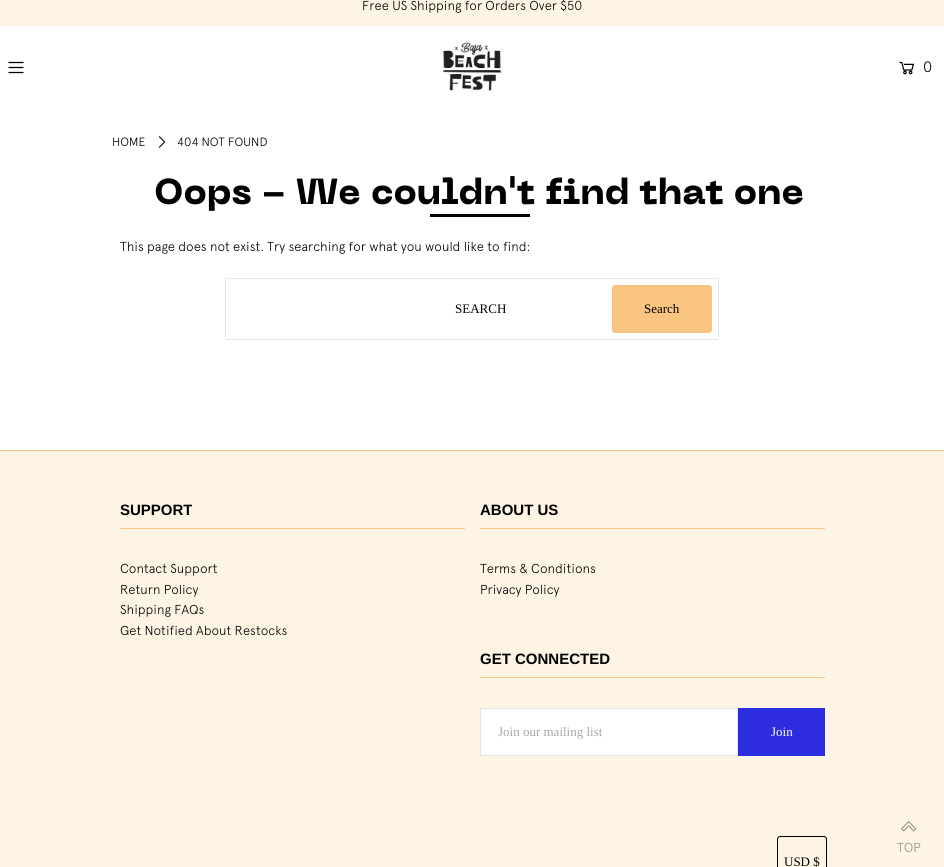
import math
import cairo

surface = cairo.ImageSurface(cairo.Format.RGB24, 944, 867)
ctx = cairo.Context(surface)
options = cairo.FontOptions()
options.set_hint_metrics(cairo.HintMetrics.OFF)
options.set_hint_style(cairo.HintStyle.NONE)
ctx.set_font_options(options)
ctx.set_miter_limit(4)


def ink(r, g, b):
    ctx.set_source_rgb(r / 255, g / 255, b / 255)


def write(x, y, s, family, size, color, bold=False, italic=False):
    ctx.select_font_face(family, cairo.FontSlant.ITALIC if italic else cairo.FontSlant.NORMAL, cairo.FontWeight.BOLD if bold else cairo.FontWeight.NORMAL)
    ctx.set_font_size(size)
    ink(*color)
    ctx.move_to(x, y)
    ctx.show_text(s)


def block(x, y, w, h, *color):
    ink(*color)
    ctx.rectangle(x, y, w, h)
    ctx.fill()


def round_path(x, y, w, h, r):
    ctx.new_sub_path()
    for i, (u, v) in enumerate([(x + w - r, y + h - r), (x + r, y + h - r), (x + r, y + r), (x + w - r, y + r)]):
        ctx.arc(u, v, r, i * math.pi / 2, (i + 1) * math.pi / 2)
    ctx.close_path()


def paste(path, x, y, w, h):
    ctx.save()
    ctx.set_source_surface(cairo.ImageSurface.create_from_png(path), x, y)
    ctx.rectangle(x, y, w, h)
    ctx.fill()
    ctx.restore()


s1 = dict(family="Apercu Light", size=13, color=(0, 0, 0))
s2 = dict(family="Apercu Light", size=15, color=(0, 0, 0))
s3 = dict(family="Apercu Light", size=12, color=(0, 0, 0))
s4 = dict(family="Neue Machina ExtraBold", size=36, color=(0, 0, 0))
s5 = dict(family="Liberation Serif", size=13, color=(0, 0, 0))
s6 = dict(family="Liberation Sans", size=15, color=(0, 0, 0), bold=True)
s7 = dict(family="Liberation Serif", size=13, color=(166, 166, 166))
s8 = dict(family="Liberation Serif", size=13, color=(255, 255, 255))
s9 = dict(family="Apercu Light", size=13, color=(152, 146, 137))

ink(255, 255, 255)
ctx.paint()
block(0, 0, 944, 26, 254, 244, 228)
write(362, 10, "Free US Shipping for Orders Over $50", **s1)
paste("pic1.png", 8, 61, 16, 13)
paste("pic2.png", 443, 42, 59, 49)
paste("pic3.png", 899, 61, 16, 14)
write(923, 72, "0", **s2)
write(112, 146, "HOME", **s3)
paste("pic4.png", 158, 136, 8, 12)
write(177, 146, "404 NOT FOUND", **s3)
write(154, 204, "Oops - We couldn't find that one", **s4)
block(430, 214, 100, 3, 0, 0, 0)
write(120, 251, "This page does not exist. Try searching for what you would like to find:", **s1)
round_path(225.5, 278.5, 493, 61, 1.5)
ink(229, 229, 229)
ctx.set_line_width(1)
ctx.stroke()
write(455, 313, "SEARCH", **s5)
ink(249, 197, 129)
round_path(612, 285, 100, 48, 3)
ctx.fill()
write(644, 313, "Search", **s5)
block(0, 451, 944, 416, 254, 244, 228)
block(0, 450, 944, 1, 249, 197, 130)
block(120, 528, 345, 1, 249, 197, 130)
write(120, 515, "SUPPORT", **s6)
write(120, 573, "Contact Support", **s1)
write(120, 594, "Return Policy", **s1)
write(120, 614, "Shipping FAQs", **s1)
write(120, 635, "Get Notified About Restocks", **s1)
block(480, 528, 345, 1, 249, 197, 130)
write(480, 515, "ABOUT US", **s6)
write(480, 573, "Terms & Conditions", **s1)
write(480, 594, "Privacy Policy", **s1)
block(480, 677, 345, 1, 249, 197, 130)
write(480, 664, "GET CONNECTED", **s6)
ink(255, 255, 255)
ctx.rectangle(480.5, 708.5, 257, 47)
ctx.fill_preserve()
ink(229, 229, 229)
ctx.stroke()
write(498, 736, "Join our mailing list", **s7)
block(738, 708, 87, 48, 44, 44, 225)
write(771, 736, "Join", **s8)
round_path(777.5, 836.5, 49, 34, 2.5)
ink(0, 0, 0)
ctx.stroke()
write(784, 866, "USD $", **s5)
paste("pic5.png", 901, 821, 16, 11)
write(897, 852, "TOP", **s9)
surface.write_to_png("screenshot.png")
